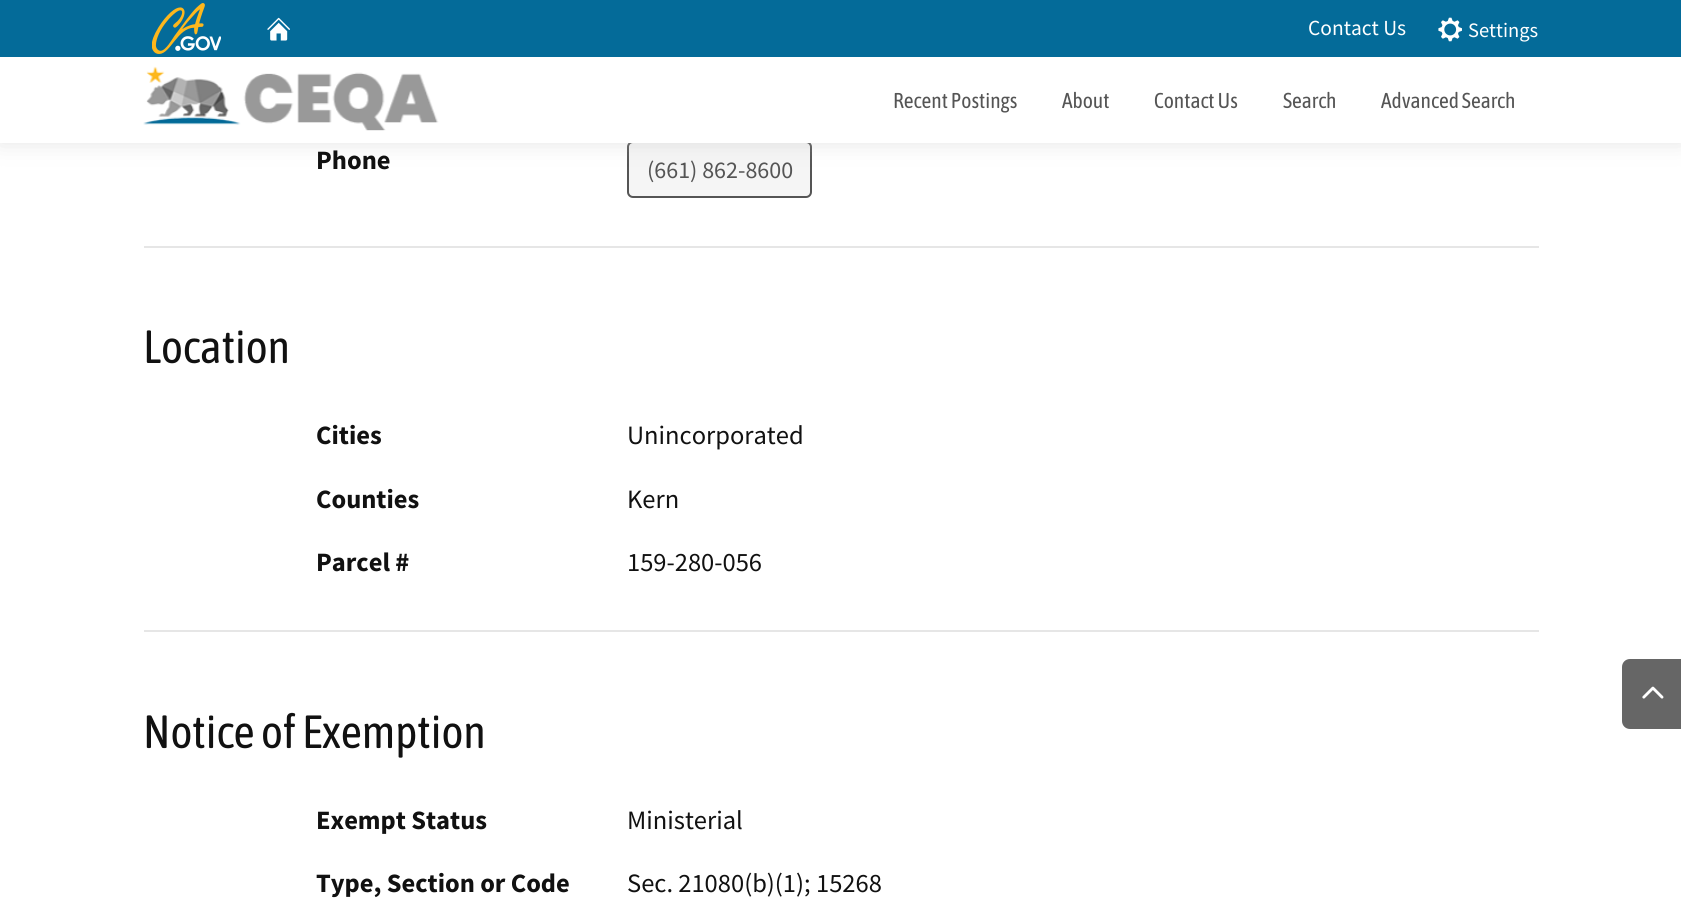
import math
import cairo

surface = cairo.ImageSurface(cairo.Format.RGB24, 1681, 916)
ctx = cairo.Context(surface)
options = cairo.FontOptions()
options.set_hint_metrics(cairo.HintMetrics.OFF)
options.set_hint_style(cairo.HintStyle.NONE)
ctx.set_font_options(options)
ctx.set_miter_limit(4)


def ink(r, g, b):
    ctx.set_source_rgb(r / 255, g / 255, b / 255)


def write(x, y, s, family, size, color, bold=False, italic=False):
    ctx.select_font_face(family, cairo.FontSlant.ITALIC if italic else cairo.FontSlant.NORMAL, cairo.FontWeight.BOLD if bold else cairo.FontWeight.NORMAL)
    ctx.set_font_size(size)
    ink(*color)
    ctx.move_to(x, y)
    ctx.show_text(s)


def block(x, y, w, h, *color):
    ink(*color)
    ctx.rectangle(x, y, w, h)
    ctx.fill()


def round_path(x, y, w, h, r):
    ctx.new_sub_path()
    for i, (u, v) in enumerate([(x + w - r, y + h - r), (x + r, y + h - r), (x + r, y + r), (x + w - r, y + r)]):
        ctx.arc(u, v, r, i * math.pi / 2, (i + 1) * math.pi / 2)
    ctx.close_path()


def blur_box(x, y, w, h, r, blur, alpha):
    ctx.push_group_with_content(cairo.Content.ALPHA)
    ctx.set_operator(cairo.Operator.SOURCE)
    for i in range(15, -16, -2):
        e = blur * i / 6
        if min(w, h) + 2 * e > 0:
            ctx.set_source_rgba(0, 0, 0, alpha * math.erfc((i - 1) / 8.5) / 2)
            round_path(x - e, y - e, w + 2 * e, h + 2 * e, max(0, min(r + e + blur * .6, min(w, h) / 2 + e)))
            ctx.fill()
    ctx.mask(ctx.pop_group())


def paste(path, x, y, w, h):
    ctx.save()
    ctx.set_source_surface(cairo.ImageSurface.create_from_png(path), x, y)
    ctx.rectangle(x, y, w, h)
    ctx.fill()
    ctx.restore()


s1 = dict(family="Source Sans Pro", size=21.5, color=(255, 255, 255))
s2 = dict(family="Source Sans Pro", size=20.5, color=(255, 255, 255))
s3 = dict(family="Asap Condensed", size=21.5, color=(85, 85, 85))
s4 = dict(family="Source Sans Pro", size=26.5, color=(17, 17, 17), bold=True)
s5 = dict(family="Source Sans Pro", size=24, color=(85, 85, 85))
s6 = dict(family="Asap Condensed", size=46.5, color=(17, 17, 17))
s7 = dict(family="Source Sans Pro", size=26.5, color=(17, 17, 17))

ink(255, 255, 255)
ctx.paint()
ink(245, 245, 245)
round_path(628, 142, 183, 55, 5)
ctx.fill_preserve()
ink(85, 85, 85)
ctx.stroke()
ink(189, 189, 189)
blur_box(0, 0, 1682, 143, 0, 11, 0.4)
block(0, 57, 1681, 86, 255, 255, 255)
block(0, 0, 1681, 57, 4, 107, 153)
paste("pic1.png", 152, 3, 69, 51)
paste("pic2.png", 267, 17, 23, 24)
write(1308, 35, "Contact Us", **s1)
paste("pic3.png", 1438, 17, 24, 25)
write(1468, 37, "Settings", **s2)
paste("pic4.png", 143, 66, 296, 65)
write(893, 108, "Recent Postings", **s3)
write(1062, 108, "About", **s3)
write(1154, 108, "Contact Us", **s3)
write(1283, 108, "Search", **s3)
write(1381, 108, "Advanced Search", **s3)
write(316, 169, "Phone", **s4)
write(647, 178, "(661) 862-8600", **s5)
block(144, 246, 1395, 2, 230, 230, 230)
write(143, 363, "Location", **s6)
write(316, 444, "Cities", **s4)
write(627, 444, "Unincorporated", **s7)
write(316, 508, "Counties", **s4)
write(627, 508, "Kern", **s7)
write(316, 571, "Parcel #", **s4)
write(627, 571, "159-280-056", **s7)
block(144, 630, 1395, 2, 230, 230, 230)
write(143, 748, "Notice of Exemption", **s6)
write(316, 829, "Exempt Status", **s4)
write(627, 829, "Ministerial", **s7)
write(316, 892, "Type, Section or Code", **s4)
write(627, 892, "Sec. 21080(b)(1); 15268", **s7)
ink(102, 102, 102)
ctx.new_path()
ctx.move_to(1630, 659)
ctx.line_to(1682, 659)
ctx.line_to(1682, 729)
ctx.line_to(1630, 729)
ctx.curve_to(1625.5, 729, 1622, 725.5, 1622, 721)
ctx.line_to(1622, 667)
ctx.curve_to(1622, 662.5, 1625.5, 659, 1630, 659)
ctx.close_path()
ctx.fill()
paste("pic5.png", 1642, 686, 22, 13)
surface.write_to_png("screenshot.png")
